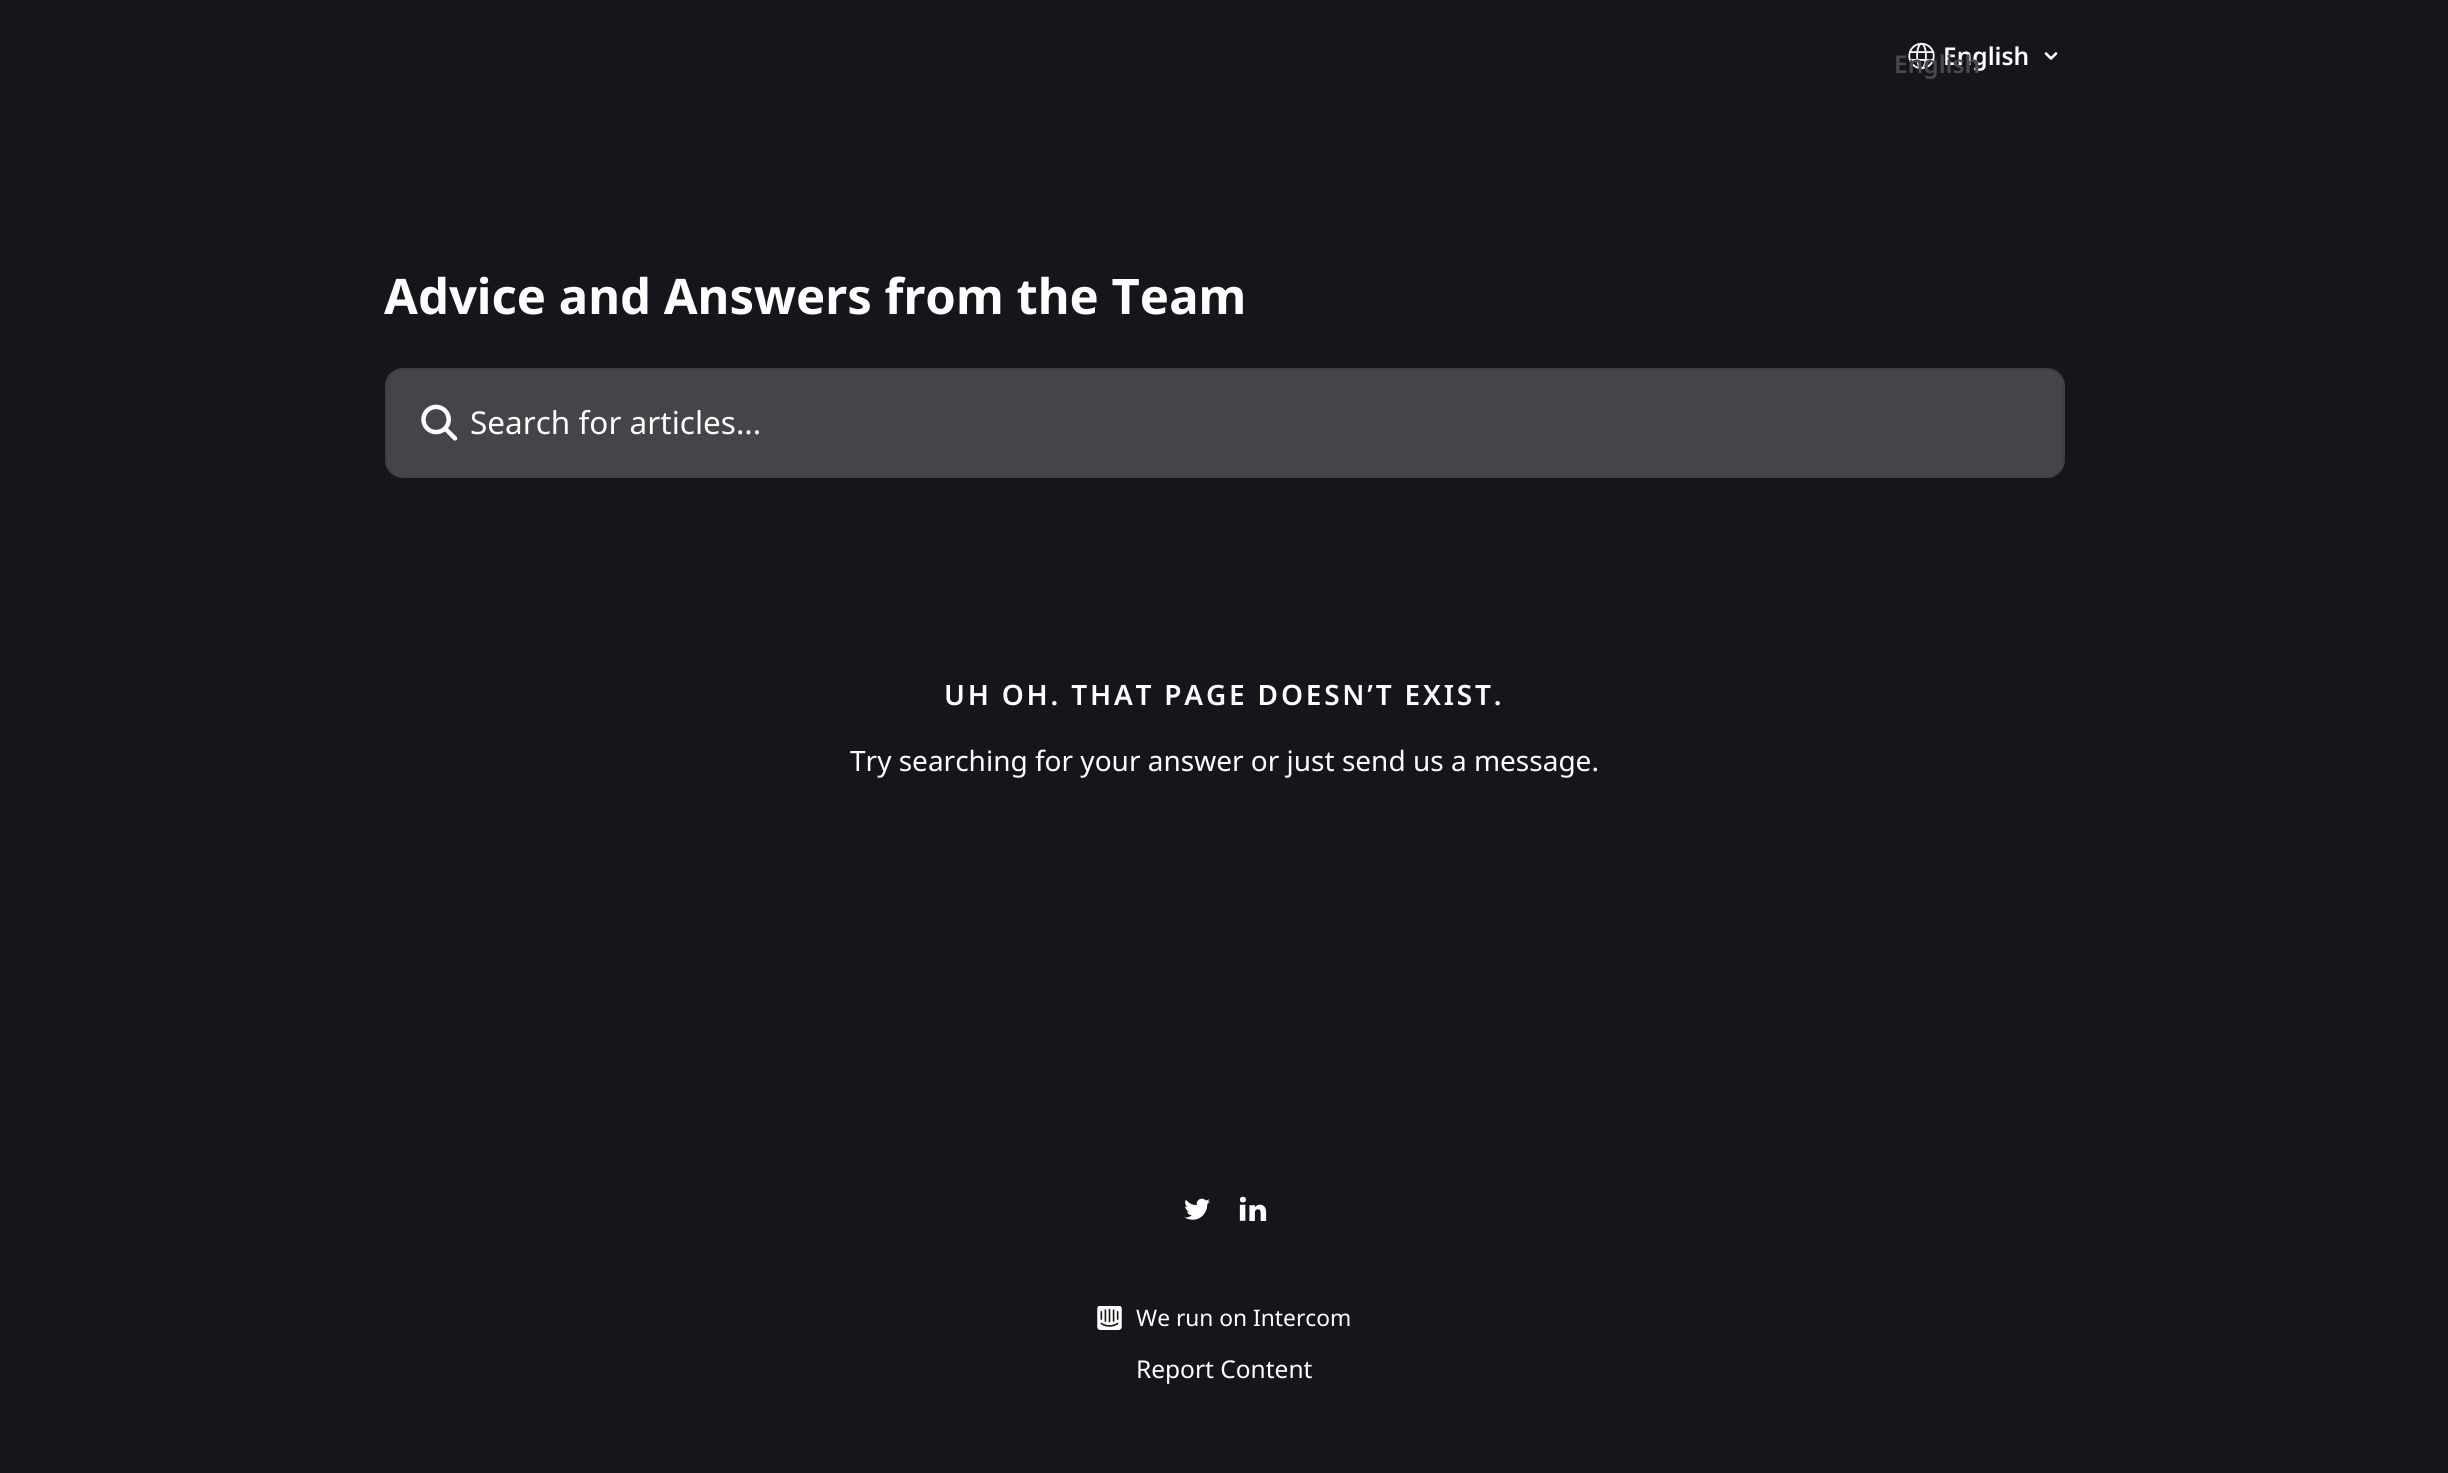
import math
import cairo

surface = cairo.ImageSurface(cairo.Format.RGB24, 2448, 1473)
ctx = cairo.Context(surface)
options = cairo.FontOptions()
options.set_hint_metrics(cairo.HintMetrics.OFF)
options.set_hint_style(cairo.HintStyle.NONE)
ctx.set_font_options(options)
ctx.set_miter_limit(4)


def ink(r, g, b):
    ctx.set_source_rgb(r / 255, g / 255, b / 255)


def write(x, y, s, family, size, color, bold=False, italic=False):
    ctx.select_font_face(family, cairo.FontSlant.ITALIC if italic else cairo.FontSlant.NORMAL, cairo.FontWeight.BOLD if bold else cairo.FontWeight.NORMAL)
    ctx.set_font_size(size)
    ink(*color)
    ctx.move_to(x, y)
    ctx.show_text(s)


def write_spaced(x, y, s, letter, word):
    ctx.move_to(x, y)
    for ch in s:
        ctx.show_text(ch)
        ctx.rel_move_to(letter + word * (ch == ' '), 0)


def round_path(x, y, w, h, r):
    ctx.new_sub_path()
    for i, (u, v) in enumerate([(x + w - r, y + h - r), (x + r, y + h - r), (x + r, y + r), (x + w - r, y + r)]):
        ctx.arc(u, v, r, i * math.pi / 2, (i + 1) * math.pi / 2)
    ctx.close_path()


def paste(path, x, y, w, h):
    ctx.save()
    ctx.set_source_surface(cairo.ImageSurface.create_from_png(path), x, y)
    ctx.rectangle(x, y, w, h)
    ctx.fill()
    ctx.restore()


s1 = dict(family="Noto Sans SemiBold", size=24.5, color=(255, 255, 255))
s2 = dict(family="Noto Sans SemiBold", size=24.5, color=(74, 71, 77))
s3 = dict(family="Noto Sans", size=49, color=(255, 255, 255), bold=True)
s4 = dict(family="Noto Sans", size=31.5, color=(255, 255, 255))
s5 = dict(family="Noto Sans", size=28, color=(255, 255, 255))
s6 = dict(family="Noto Sans", size=22.75, color=(255, 255, 255))
s7 = dict(family="Noto Sans", size=24.5, color=(255, 255, 255))

ink(24, 20, 28)
ctx.paint()
paste("pic1.png", 1908, 42, 27, 28)
write(1943, 65, "English", **s1)
write(1894, 73, "English", **s2)
ctx.new_path()
ctx.move_to(2046, 53.5)
ctx.line_to(2051, 58.5)
ctx.line_to(2056, 53.5)
ink(255, 255, 255)
ctx.set_line_width(2.6)
ctx.set_line_cap(cairo.LineCap.ROUND)
ctx.set_line_join(cairo.LineJoin.ROUND)
ctx.stroke()
write(384, 314, "Advice and Answers from the Team", **s3)
ink(70, 67, 73)
round_path(385, 368, 1680, 110, 18)
ctx.fill()
round_path(386, 369, 1678, 108, 17)
ctx.set_source_rgba(0, 0, 0, 0.08)
ctx.set_line_width(2)
ctx.set_line_cap(cairo.LineCap.BUTT)
ctx.set_line_join(cairo.LineJoin.MITER)
ctx.stroke()
paste("pic2.png", 421, 404, 37, 37)
write(470, 434, "Search for articles...", **s4)
ctx.select_font_face("Noto Sans SemiBold")
ctx.set_font_size(28)
write_spaced(944, 705, "UH OH. THAT PAGE DOESN’T EXIST.", 2.8, 0)
write(850, 771, "Try searching for your answer or just send us a message.", **s5)
paste("pic3.png", 1184, 1198, 26, 22)
paste("pic4.png", 1239, 1196, 28, 25)
paste("pic5.png", 1097, 1306, 25, 24)
write(1136, 1326, "We run on Intercom", **s6)
write(1136, 1378, "Report Content", **s7)
surface.write_to_png("screenshot.png")
